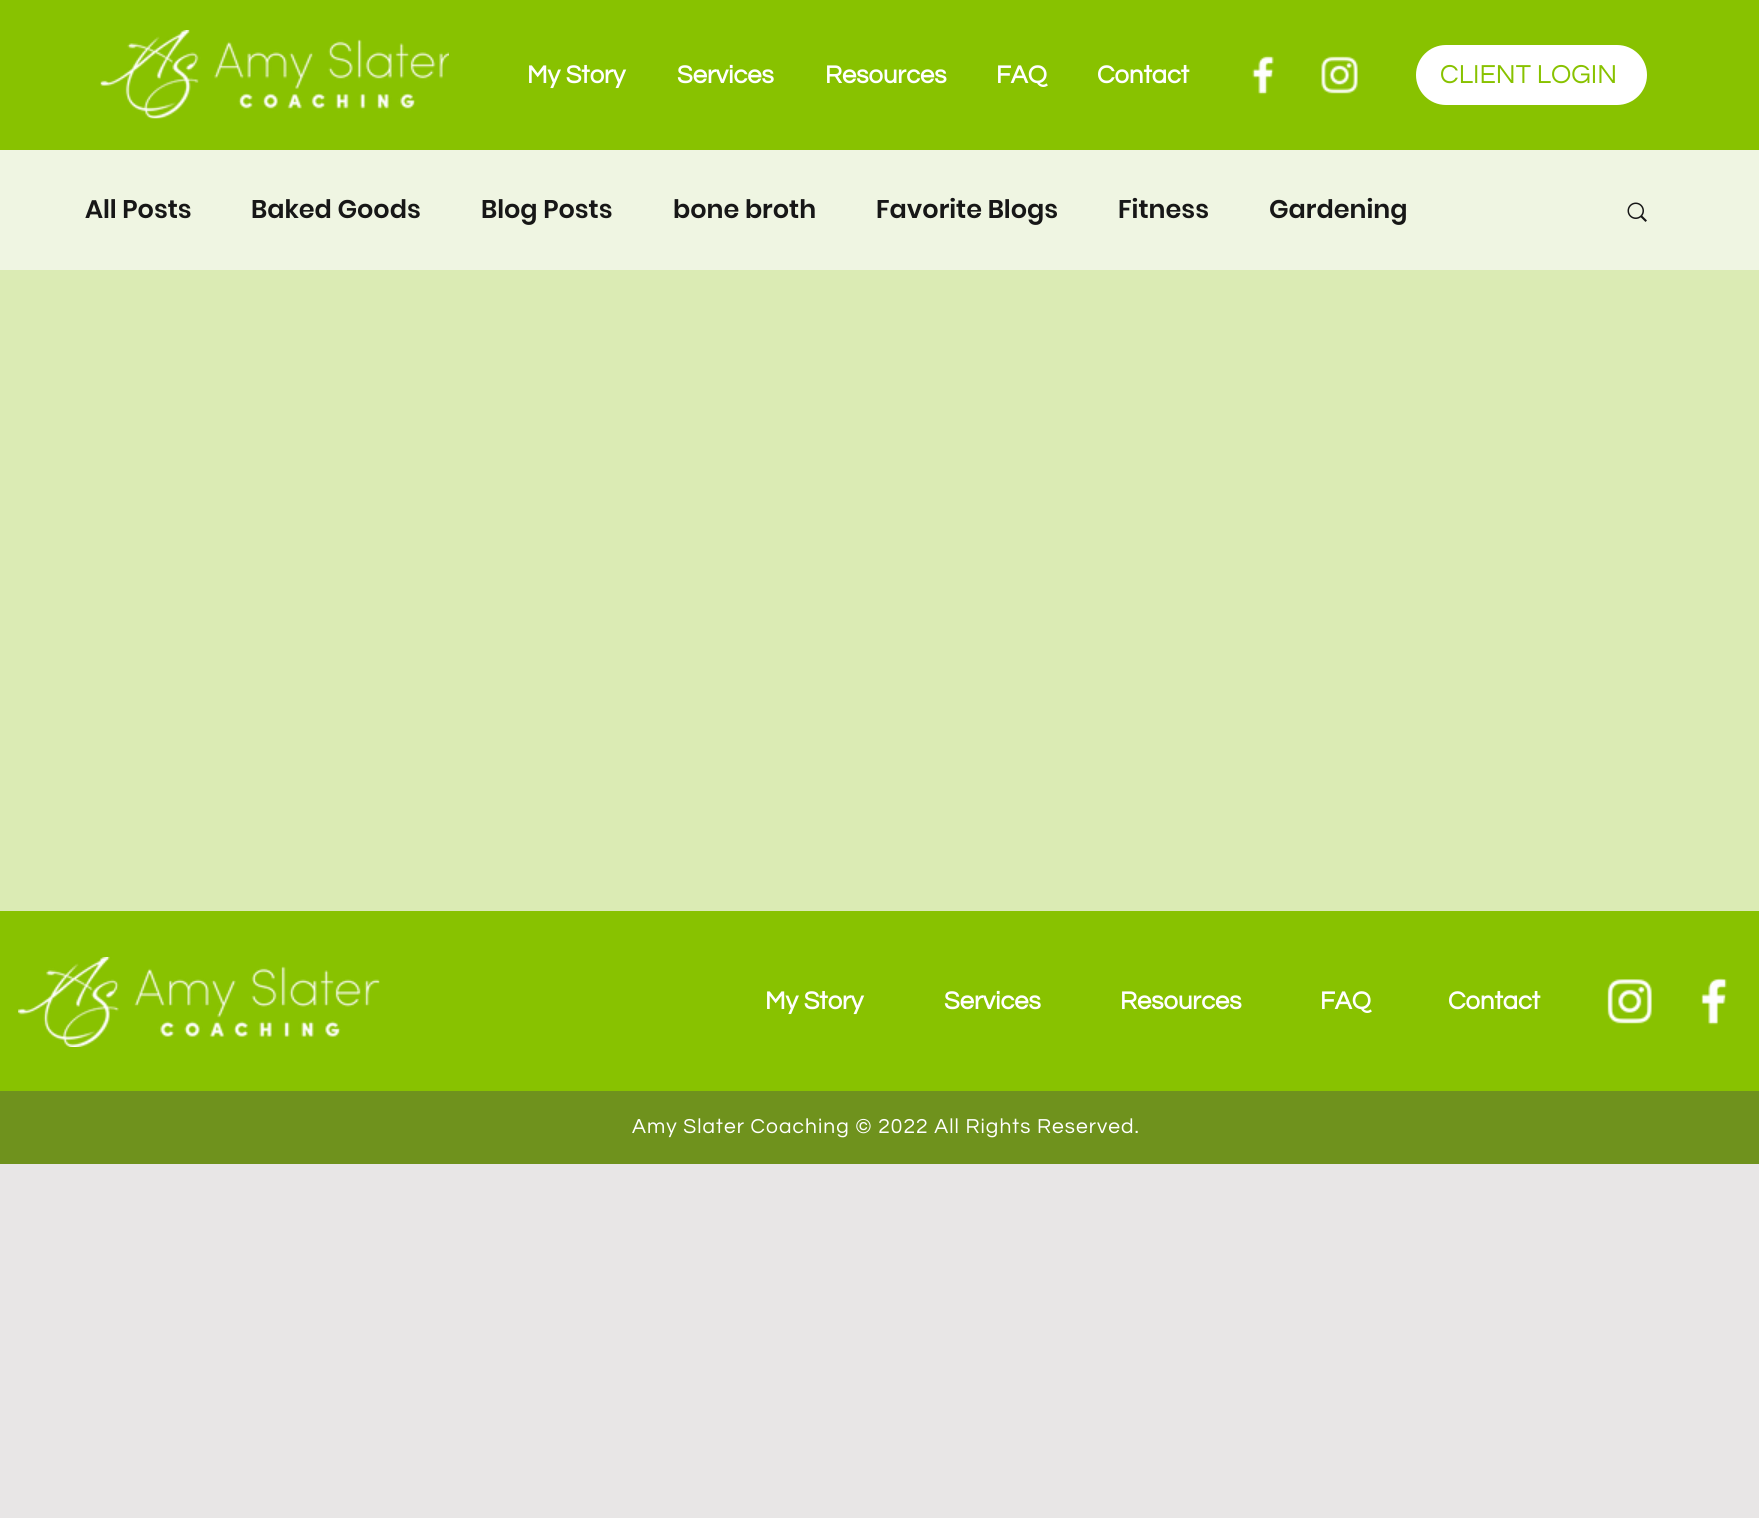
import math
import cairo

surface = cairo.ImageSurface(cairo.Format.RGB24, 1759, 1518)
ctx = cairo.Context(surface)
options = cairo.FontOptions()
options.set_hint_metrics(cairo.HintMetrics.OFF)
options.set_hint_style(cairo.HintStyle.NONE)
ctx.set_font_options(options)
ctx.set_miter_limit(4)


def ink(r, g, b):
    ctx.set_source_rgb(r / 255, g / 255, b / 255)


def write(x, y, s, family, size, color, bold=False, italic=False):
    ctx.select_font_face(family, cairo.FontSlant.ITALIC if italic else cairo.FontSlant.NORMAL, cairo.FontWeight.BOLD if bold else cairo.FontWeight.NORMAL)
    ctx.set_font_size(size)
    ink(*color)
    ctx.move_to(x, y)
    ctx.show_text(s)


def write_spaced(x, y, s, letter, word):
    ctx.move_to(x, y)
    for ch in s:
        ctx.show_text(ch)
        ctx.rel_move_to(letter + word * (ch == ' '), 0)


def block(x, y, w, h, *color):
    ink(*color)
    ctx.rectangle(x, y, w, h)
    ctx.fill()


def round_path(x, y, w, h, r):
    ctx.new_sub_path()
    for i, (u, v) in enumerate([(x + w - r, y + h - r), (x + r, y + h - r), (x + r, y + r), (x + w - r, y + r)]):
        ctx.arc(u, v, r, i * math.pi / 2, (i + 1) * math.pi / 2)
    ctx.close_path()


def paste(path, x, y, w, h):
    ctx.save()
    ctx.set_source_surface(cairo.ImageSurface.create_from_png(path), x, y)
    ctx.rectangle(x, y, w, h)
    ctx.fill()
    ctx.restore()


s1 = dict(family="Questrial", size=25.5, color=(255, 255, 255), bold=True)
s2 = dict(family="Questrial", size=27, color=(136, 194, 0))
s3 = dict(family="Poppins SemiBold", size=25.5, color=(23, 23, 23))

ink(232, 230, 230)
ctx.paint()
block(0, 0, 1759, 150, 136, 194, 0)
paste("pic1.png", 100, 30, 349, 89)
write(527, 83, "My Story", **s1)
write(677, 83, "Services", **s1)
write(825, 83, "Resources", **s1)
write(996, 83, "FAQ", **s1)
write(1097, 83, "Contact", **s1)
paste("pic2.png", 1252, 55, 22, 40)
paste("pic3.png", 1321, 56, 37, 38)
round_path(1416, 45, 231, 60, 30)
ctx.fill()
write(1440, 83, "CLIENT LOGIN", **s2)
block(0, 270, 1759, 641, 219, 235, 180)
block(0, 150, 1759, 120, 239, 245, 226)
write(85, 218, "All Posts", **s3)
write(251, 218, "Baked Goods", **s3)
write(481, 218, "Blog Posts", **s3)
write(673, 218, "bone broth", **s3)
write(876, 218, "Favorite Blogs", **s3)
write(1118, 218, "Fitness", **s3)
write(1269, 218, "Gardening", **s3)
paste("pic4.png", 1627, 202, 20, 20)
block(0, 911, 1759, 180, 136, 194, 0)
paste("pic5.png", 18, 957, 362, 90)
write(765, 1009, "My Story", **s1)
write(944, 1009, "Services", **s1)
write(1120, 1009, "Resources", **s1)
write(1320, 1009, "FAQ", **s1)
write(1448, 1009, "Contact", **s1)
paste("pic6.png", 1607, 979, 45, 45)
paste("pic7.png", 1701, 978, 26, 47)
block(0, 1091, 1759, 73, 111, 146, 29)
ctx.select_font_face("Questrial")
ctx.set_font_size(21)
ink(255, 255, 255)
write_spaced(632, 1133, "Amy Slater Coaching © 2022 All Rights Reserved.", 1.05, 0)
surface.write_to_png("screenshot.png")
